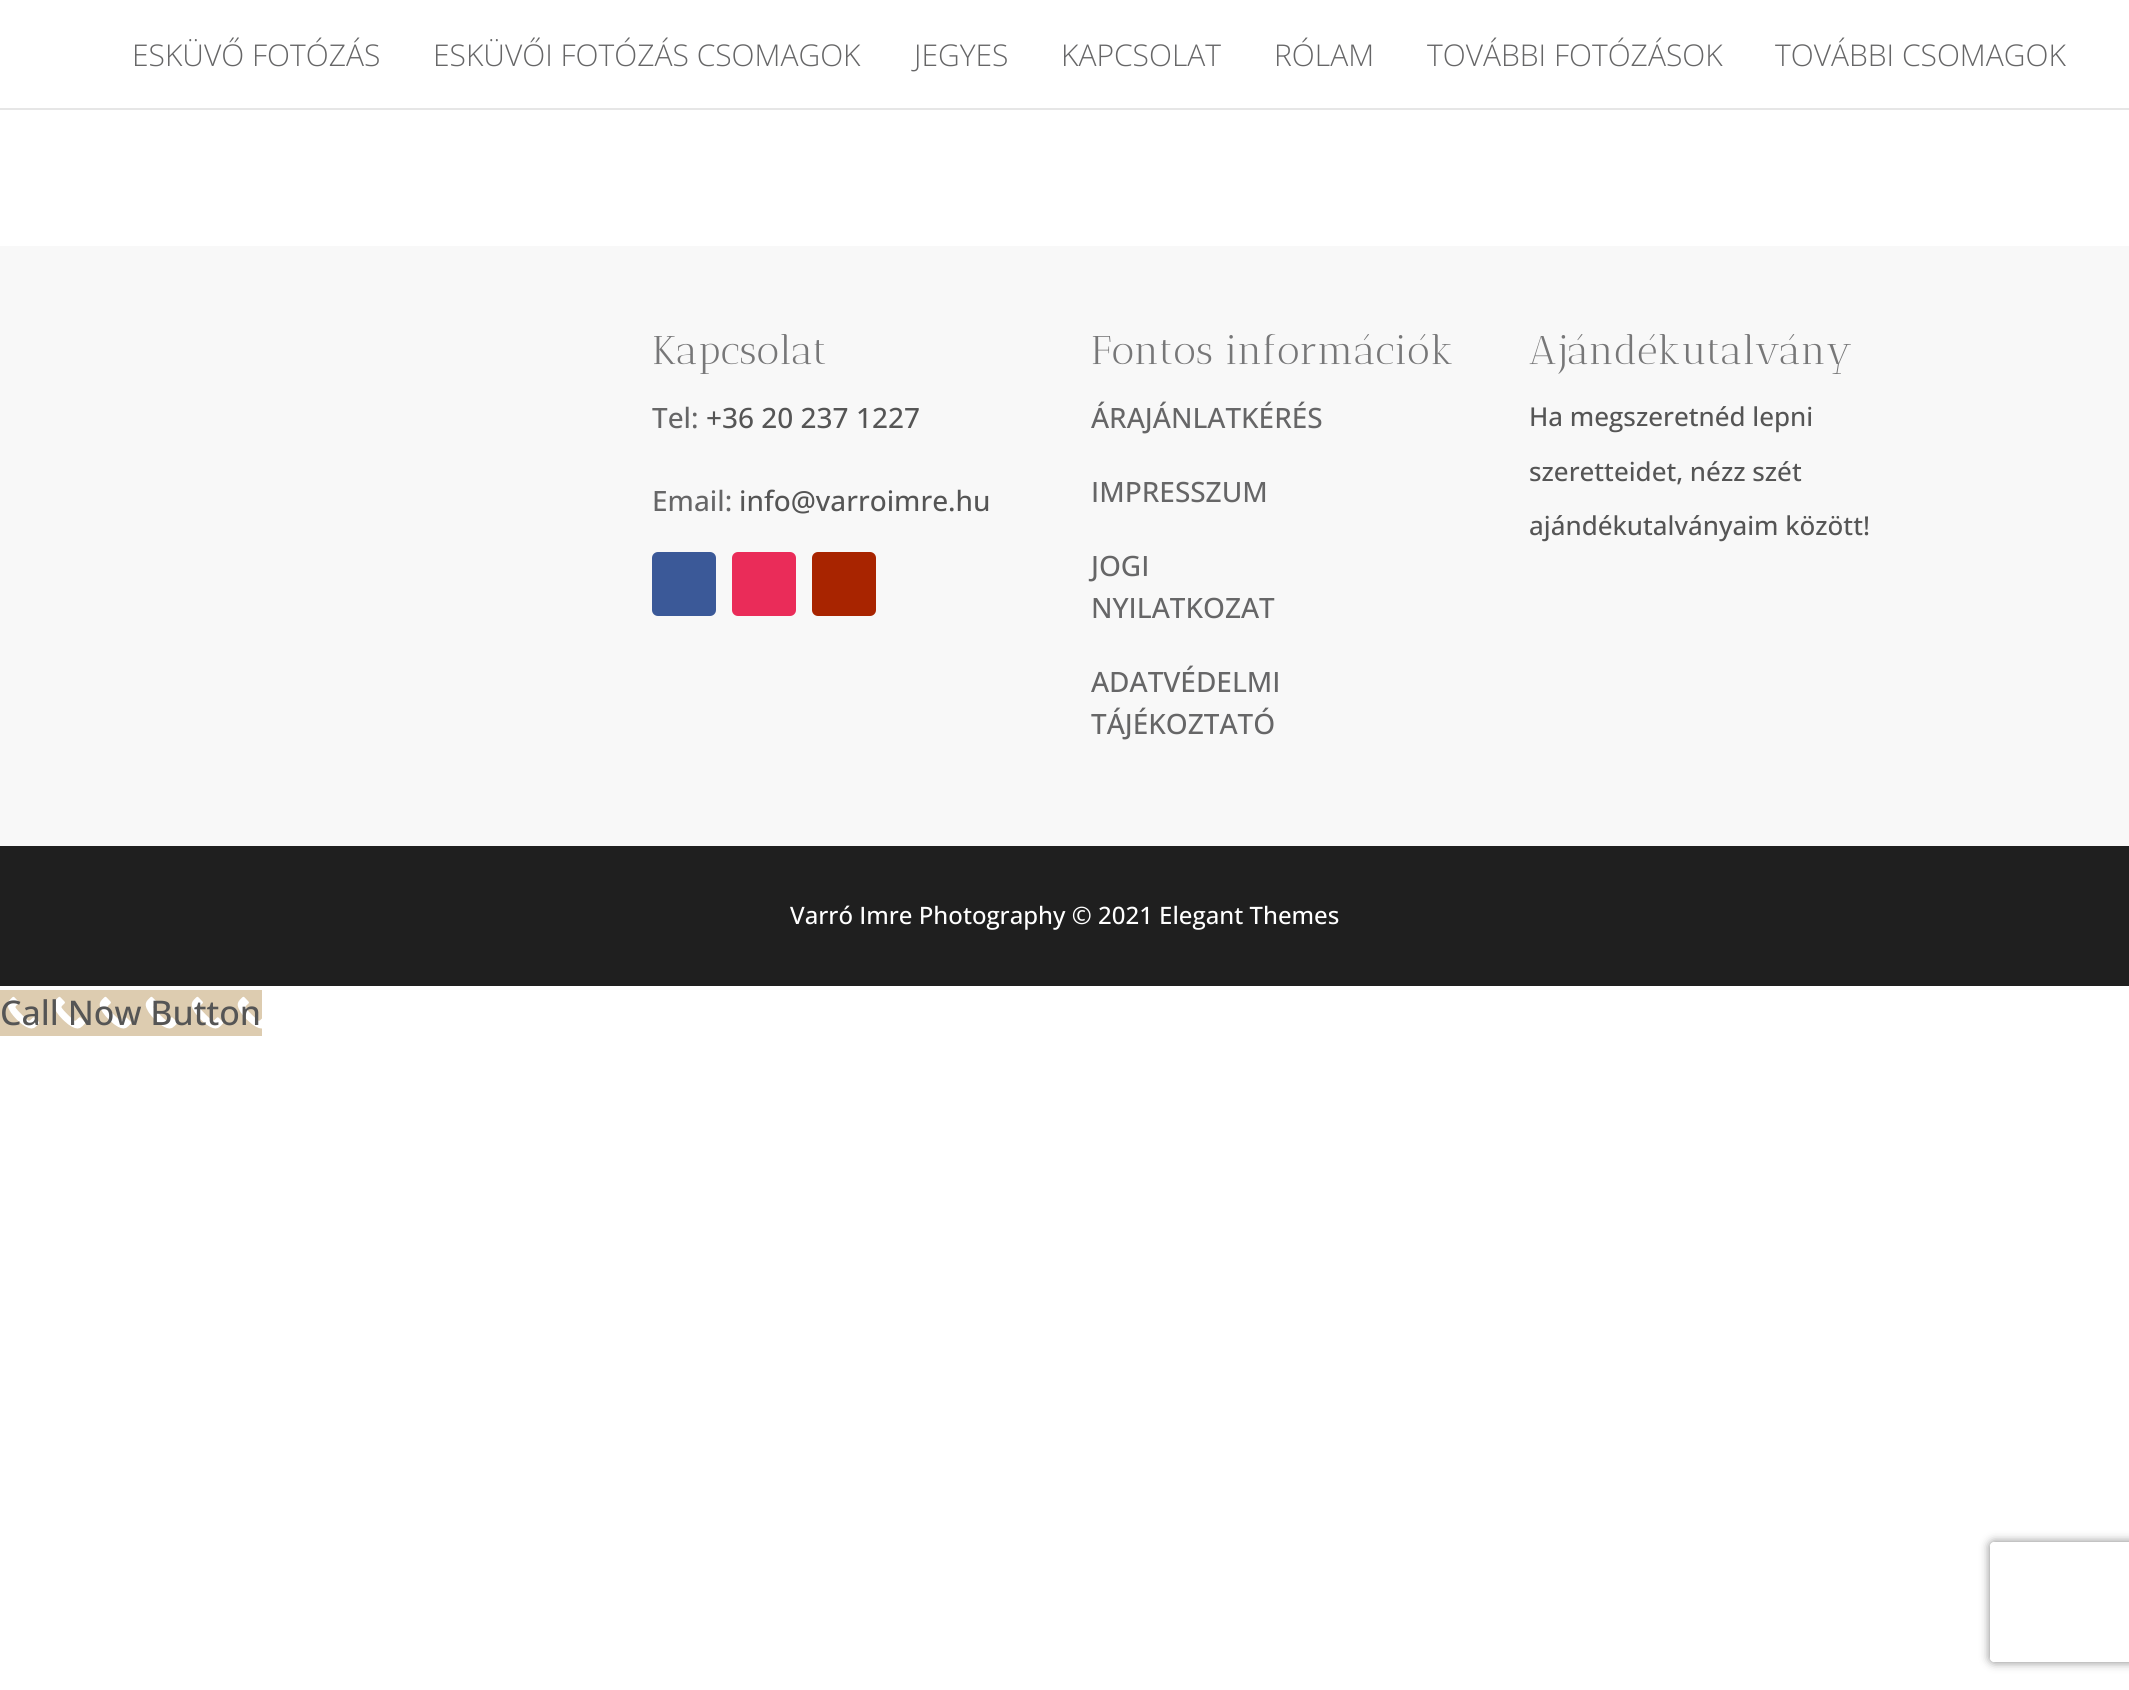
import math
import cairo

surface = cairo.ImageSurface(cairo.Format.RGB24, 2129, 1690)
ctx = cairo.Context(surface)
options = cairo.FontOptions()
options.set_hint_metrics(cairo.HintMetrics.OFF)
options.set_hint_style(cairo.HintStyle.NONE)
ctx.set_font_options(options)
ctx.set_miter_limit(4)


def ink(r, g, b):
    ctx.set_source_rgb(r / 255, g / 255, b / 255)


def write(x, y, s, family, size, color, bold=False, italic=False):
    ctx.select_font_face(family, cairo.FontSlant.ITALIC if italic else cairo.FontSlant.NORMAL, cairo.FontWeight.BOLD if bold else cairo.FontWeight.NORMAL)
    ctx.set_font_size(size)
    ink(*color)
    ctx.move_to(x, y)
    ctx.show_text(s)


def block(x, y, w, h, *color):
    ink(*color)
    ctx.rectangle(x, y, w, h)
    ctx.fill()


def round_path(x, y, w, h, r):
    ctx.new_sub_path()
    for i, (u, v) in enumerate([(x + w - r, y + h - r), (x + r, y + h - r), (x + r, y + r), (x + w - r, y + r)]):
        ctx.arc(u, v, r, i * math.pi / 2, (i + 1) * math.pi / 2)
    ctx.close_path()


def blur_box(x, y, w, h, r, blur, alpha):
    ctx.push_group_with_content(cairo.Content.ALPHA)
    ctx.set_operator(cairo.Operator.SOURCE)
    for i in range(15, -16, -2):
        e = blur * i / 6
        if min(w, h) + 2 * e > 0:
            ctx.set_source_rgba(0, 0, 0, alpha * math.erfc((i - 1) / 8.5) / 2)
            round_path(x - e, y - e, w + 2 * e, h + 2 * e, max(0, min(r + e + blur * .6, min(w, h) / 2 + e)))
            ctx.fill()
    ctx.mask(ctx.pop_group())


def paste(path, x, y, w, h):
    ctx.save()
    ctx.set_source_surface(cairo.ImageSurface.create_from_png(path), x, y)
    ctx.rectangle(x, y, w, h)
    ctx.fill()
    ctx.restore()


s1 = dict(family="Open Sans Light", size=30, color=(102, 102, 103))
s2 = dict(family="Antic Didone", size=40, color=(119, 119, 120))
s3 = dict(family="Open Sans Medium", size=28, color=(102, 102, 103))
s4 = dict(family="Open Sans Medium", size=28, color=(85, 85, 85))
s5 = dict(family="Open Sans Medium", size=26, color=(85, 85, 85))
s6 = dict(family="Open Sans Medium", size=24, color=(255, 255, 255))
s7 = dict(family="Open Sans Medium", size=34, color=(85, 85, 85))

ink(255, 255, 255)
ctx.paint()
block(0, 108, 2129, 2, 230, 230, 230)
write(132, 66, "ESKÜVŐ FOTÓZÁS", **s1)
write(433, 66, "ESKÜVŐI FOTÓZÁS CSOMAGOK", **s1)
write(914, 66, "JEGYES", **s1)
write(1061, 66, "KAPCSOLAT", **s1)
write(1274, 66, "RÓLAM", **s1)
write(1427, 66, "TOVÁBBI FOTÓZÁSOK", **s1)
write(1775, 66, "TOVÁBBI CSOMAGOK", **s1)
block(0, 246, 2129, 600, 248, 248, 248)
write(652, 364, "Kapcsolat", **s2)
write(652, 428, "Tel:", **s3)
write(706, 428, "+36 20 237 1227", **s4)
write(652, 511, "Email:", **s3)
write(739, 511, "info@varroimre.hu", **s4)
ink(59, 89, 152)
round_path(652, 552, 64, 64, 6)
ctx.fill()
ink(234, 44, 89)
round_path(732, 552, 64, 64, 6)
ctx.fill()
ink(168, 36, 0)
round_path(812, 552, 64, 64, 6)
ctx.fill()
write(1091, 364, "Fontos információk", **s2)
write(1091, 428, "ÁRAJÁNLATKÉRÉS", **s3)
write(1091, 502, "IMPRESSZUM", **s3)
write(1091, 576, "JOGI", **s3)
write(1091, 618, "NYILATKOZAT", **s3)
write(1091, 692, "ADATVÉDELMI", **s3)
write(1091, 734, "TÁJÉKOZTATÓ", **s3)
write(1529, 364, "Ajándékutalvány", **s2)
write(1529, 426, "Ha megszeretnéd lepni", **s5)
write(1529, 481, "szeretteidet, nézz szét", **s5)
write(1529, 535, "ajándékutalványaim között!", **s5)
block(0, 846, 2129, 140, 31, 31, 31)
write(790, 924, "Varró Imre Photography © 2021 Elegant Themes", **s6)
block(0, 990, 262, 46, 221, 204, 176)
paste("pic1.png", 7, 996, 255, 33)
write(0, 1025, "Call Now Button", **s7)
ctx.save()
ctx.set_fill_rule(cairo.FillRule.EVEN_ODD)
ctx.new_path()
ctx.move_to(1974, 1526)
ctx.line_to(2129, 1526)
ctx.line_to(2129, 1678)
ctx.line_to(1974, 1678)
ctx.close_path()
ctx.move_to(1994, 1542)
ctx.line_to(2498, 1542)
ctx.curve_to(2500, 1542, 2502, 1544, 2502, 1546)
ctx.line_to(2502, 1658)
ctx.curve_to(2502, 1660, 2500, 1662, 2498, 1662)
ctx.line_to(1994, 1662)
ctx.curve_to(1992, 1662, 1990, 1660, 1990, 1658)
ctx.line_to(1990, 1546)
ctx.curve_to(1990, 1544, 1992, 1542, 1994, 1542)
ctx.close_path()
ctx.clip()
ink(128, 128, 128)
blur_box(1990, 1542, 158, 120, 4, 5, 1)
ctx.restore()
surface.write_to_png("screenshot.png")
